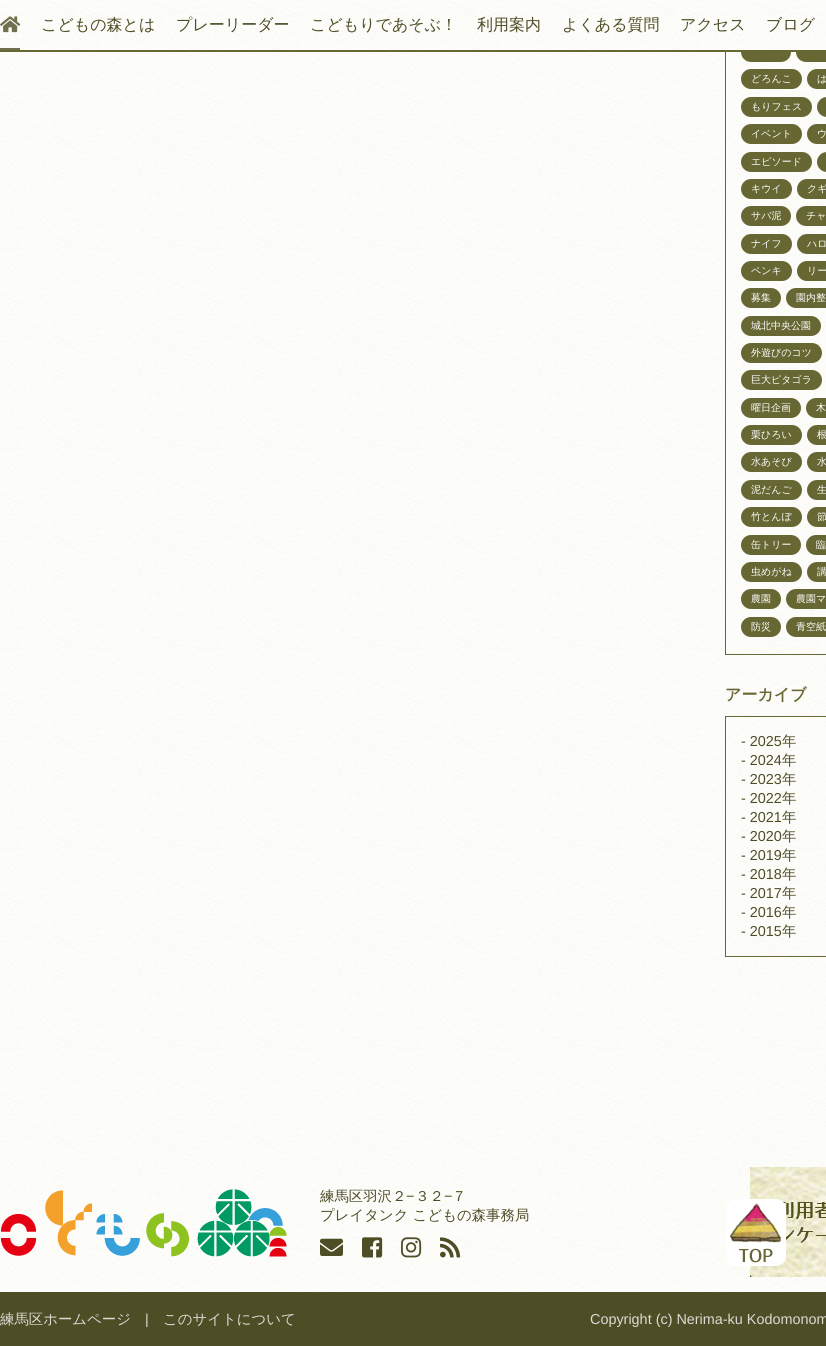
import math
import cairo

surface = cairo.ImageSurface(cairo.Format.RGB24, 826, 1346)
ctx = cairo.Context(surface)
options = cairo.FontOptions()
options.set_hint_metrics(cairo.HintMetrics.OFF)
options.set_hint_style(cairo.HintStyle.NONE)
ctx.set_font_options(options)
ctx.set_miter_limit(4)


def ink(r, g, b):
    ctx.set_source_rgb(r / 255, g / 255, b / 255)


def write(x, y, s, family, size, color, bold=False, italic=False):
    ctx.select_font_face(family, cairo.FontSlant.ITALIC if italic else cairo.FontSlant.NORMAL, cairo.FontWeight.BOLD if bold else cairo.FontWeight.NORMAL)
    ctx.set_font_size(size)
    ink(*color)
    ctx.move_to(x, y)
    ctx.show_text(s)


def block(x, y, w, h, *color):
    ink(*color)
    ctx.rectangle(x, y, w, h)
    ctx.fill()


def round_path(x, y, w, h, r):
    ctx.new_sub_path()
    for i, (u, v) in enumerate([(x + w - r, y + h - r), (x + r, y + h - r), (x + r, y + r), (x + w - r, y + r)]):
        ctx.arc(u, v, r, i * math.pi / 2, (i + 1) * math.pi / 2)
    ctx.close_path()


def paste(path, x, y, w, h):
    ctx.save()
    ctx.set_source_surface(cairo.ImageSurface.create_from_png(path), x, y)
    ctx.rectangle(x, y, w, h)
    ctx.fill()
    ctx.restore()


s1 = dict(family="WenQuanYi Zen Hei Medium", size=16, color=(77, 77, 38))
s2 = dict(family="WenQuanYi Zen Hei Medium", size=10, color=(255, 255, 255))
s3 = dict(family="WenQuanYi Zen Hei", size=16, color=(103, 103, 51), bold=True)
s4 = dict(family="Liberation Sans", size=14.4, color=(77, 77, 38))
s5 = dict(family="WenQuanYi Zen Hei Medium", size=14.4, color=(77, 77, 38))
s6 = dict(family="WenQuanYi Zen Hei Medium", size=14.4, color=(219, 219, 212))
s7 = dict(family="Liberation Sans", size=14.4, color=(219, 219, 212))

ink(255, 255, 255)
ctx.paint()
paste("pic1.png", 0, 52, 826, 1240)
ctx.rectangle(725.5, -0.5, 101, 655)
ink(103, 103, 51)
ctx.set_line_width(1)
ctx.stroke()
round_path(741, 42, 50, 20, 10)
ctx.fill()
round_path(796, 42, 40, 20, 10)
ctx.fill()
paste("pic2.png", 0, 0, 826, 50)
block(0, 50, 797, 2, 103, 103, 51)
paste("pic3.png", 0, 16, 21, 17)
ctx.set_source_rgba(0.302, 0.302, 0.149, 0.8)
ctx.rectangle(0, 48, 20, 2)
ctx.fill()
write(41, 30, "こどもの森とは", **s1)
write(176, 30, "プレーリーダー", **s1)
write(310, 30, "こどもりであそぶ！", **s1)
write(477, 30, "利用案内", **s1)
write(562, 30, "よくある質問", **s1)
write(680, 30, "アクセス", **s1)
write(766, 30, "ブログ", **s1)
ink(103, 103, 51)
round_path(741, 69, 61, 20, 10)
ctx.fill()
write(751, 82, "どろんこ", **s2)
ink(103, 103, 51)
round_path(807, 69, 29, 20, 10)
ctx.fill()
write(817, 82, "は", **s2)
ink(103, 103, 51)
round_path(741, 97, 71, 20, 10)
ctx.fill()
write(751, 110, "もりフェス", **s2)
ink(103, 103, 51)
round_path(817, 97, 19, 20, 10)
ctx.fill()
round_path(741, 124, 61, 20, 10)
ctx.fill()
write(751, 137, "イベント", **s2)
ink(103, 103, 51)
round_path(807, 124, 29, 20, 10)
ctx.fill()
write(817, 137, "ウ", **s2)
ink(103, 103, 51)
round_path(741, 152, 71, 20, 10)
ctx.fill()
write(751, 165, "エピソード", **s2)
ink(103, 103, 51)
round_path(817, 152, 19, 20, 10)
ctx.fill()
round_path(741, 179, 51, 20, 10)
ctx.fill()
write(751, 192, "キウイ", **s2)
ink(103, 103, 51)
round_path(797, 179, 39, 20, 10)
ctx.fill()
write(807, 192, "クギ", **s2)
ink(103, 103, 51)
round_path(741, 206, 50, 20, 10)
ctx.fill()
write(751, 219, "サバ泥", **s2)
ink(103, 103, 51)
round_path(796, 206, 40, 20, 10)
ctx.fill()
write(806, 219, "チャ", **s2)
ink(103, 103, 51)
round_path(741, 234, 51, 20, 10)
ctx.fill()
write(751, 247, "ナイフ", **s2)
ink(103, 103, 51)
round_path(797, 234, 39, 20, 10)
ctx.fill()
write(807, 247, "ハロ", **s2)
ink(103, 103, 51)
round_path(741, 261, 51, 20, 10)
ctx.fill()
write(751, 274, "ペンキ", **s2)
ink(103, 103, 51)
round_path(797, 261, 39, 20, 10)
ctx.fill()
write(807, 274, "リー", **s2)
ink(103, 103, 51)
round_path(741, 288, 40, 20, 10)
ctx.fill()
write(751, 301, "募集", **s2)
ink(103, 103, 51)
round_path(786, 288, 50, 20, 10)
ctx.fill()
write(796, 301, "園内整", **s2)
ink(103, 103, 51)
round_path(741, 316, 80, 20, 10)
ctx.fill()
write(751, 329, "城北中央公園", **s2)
ink(103, 103, 51)
round_path(741, 343, 81, 20, 10)
ctx.fill()
write(751, 356, "外遊びのコツ", **s2)
ink(103, 103, 51)
round_path(741, 370, 81, 20, 10)
ctx.fill()
write(751, 383, "巨大ピタゴラ", **s2)
ink(103, 103, 51)
round_path(741, 398, 60, 20, 10)
ctx.fill()
write(751, 411, "曜日企画", **s2)
ink(103, 103, 51)
round_path(806, 398, 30, 20, 10)
ctx.fill()
write(816, 411, "木", **s2)
ink(103, 103, 51)
round_path(741, 425, 61, 20, 10)
ctx.fill()
write(751, 438, "栗ひろい", **s2)
ink(103, 103, 51)
round_path(807, 425, 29, 20, 10)
ctx.fill()
write(817, 438, "根", **s2)
ink(103, 103, 51)
round_path(741, 452, 61, 20, 10)
ctx.fill()
write(751, 465, "水あそび", **s2)
ink(103, 103, 51)
round_path(807, 452, 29, 20, 10)
ctx.fill()
write(817, 465, "水", **s2)
ink(103, 103, 51)
round_path(741, 480, 61, 20, 10)
ctx.fill()
write(751, 493, "泥だんご", **s2)
ink(103, 103, 51)
round_path(807, 480, 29, 20, 10)
ctx.fill()
write(817, 493, "生", **s2)
ink(103, 103, 51)
round_path(741, 507, 61, 20, 10)
ctx.fill()
write(751, 520, "竹とんぼ", **s2)
ink(103, 103, 51)
round_path(807, 507, 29, 20, 10)
ctx.fill()
write(817, 520, "節", **s2)
ink(103, 103, 51)
round_path(741, 535, 60, 20, 10)
ctx.fill()
write(751, 548, "缶トリー", **s2)
ink(103, 103, 51)
round_path(806, 535, 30, 20, 10)
ctx.fill()
write(816, 548, "臨", **s2)
ink(103, 103, 51)
round_path(741, 562, 61, 20, 10)
ctx.fill()
write(751, 575, "虫めがね", **s2)
ink(103, 103, 51)
round_path(807, 562, 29, 20, 10)
ctx.fill()
write(817, 575, "講", **s2)
ink(103, 103, 51)
round_path(741, 589, 40, 20, 10)
ctx.fill()
write(751, 602, "農園", **s2)
ink(103, 103, 51)
round_path(786, 589, 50, 20, 10)
ctx.fill()
write(796, 602, "農園マ", **s2)
ink(103, 103, 51)
round_path(741, 617, 40, 20, 10)
ctx.fill()
write(751, 630, "防災", **s2)
ink(103, 103, 51)
round_path(786, 617, 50, 20, 10)
ctx.fill()
write(796, 630, "青空紙", **s2)
write(725, 700, "アーカイブ", **s3)
ctx.rectangle(725.5, 716.5, 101, 240)
ctx.stroke()
write(741, 746, "- 2025", **s4)
write(782, 746, "年", **s5)
write(741, 765, "- 2024", **s4)
write(782, 765, "年", **s5)
write(741, 784, "- 2023", **s4)
write(782, 784, "年", **s5)
write(741, 803, "- 2022", **s4)
write(782, 803, "年", **s5)
write(741, 822, "- 2021", **s4)
write(782, 822, "年", **s5)
write(741, 841, "- 2020", **s4)
write(782, 841, "年", **s5)
write(741, 860, "- 2019", **s4)
write(782, 860, "年", **s5)
write(741, 879, "- 2018", **s4)
write(782, 879, "年", **s5)
write(741, 898, "- 2017", **s4)
write(782, 898, "年", **s5)
write(741, 917, "- 2016", **s4)
write(782, 917, "年", **s5)
write(741, 936, "- 2015", **s4)
write(782, 936, "年", **s5)
paste("pic4.png", 1, 1189, 286, 68)
write(320, 1201, "練馬区羽沢２", **s5)
write(406, 1201, "−", **s4)
write(415, 1201, "３２", **s5)
write(444, 1201, "−", **s4)
write(452, 1201, "７", **s5)
write(320, 1220, "プレイタンク こどもの森事務局", **s5)
paste("pic5.png", 320, 1238, 23, 18)
paste("pic6.png", 362, 1237, 21, 21)
paste("pic7.png", 401, 1237, 21, 21)
paste("pic8.png", 440, 1237, 21, 21)
paste("pic9.png", 750, 1167, 76, 110)
block(0, 1292, 826, 54, 77, 77, 38)
write(0, 1324, "練馬区ホームページ", **s6)
write(145, 1324, "|", **s7)
write(163, 1324, "このサイトについて", **s6)
write(590, 1324, "Copyright (c) Nerima-ku Kodomonom", **s7)
paste("pic10.png", 726, 1199, 60, 67)
surface.write_to_png("screenshot.png")
